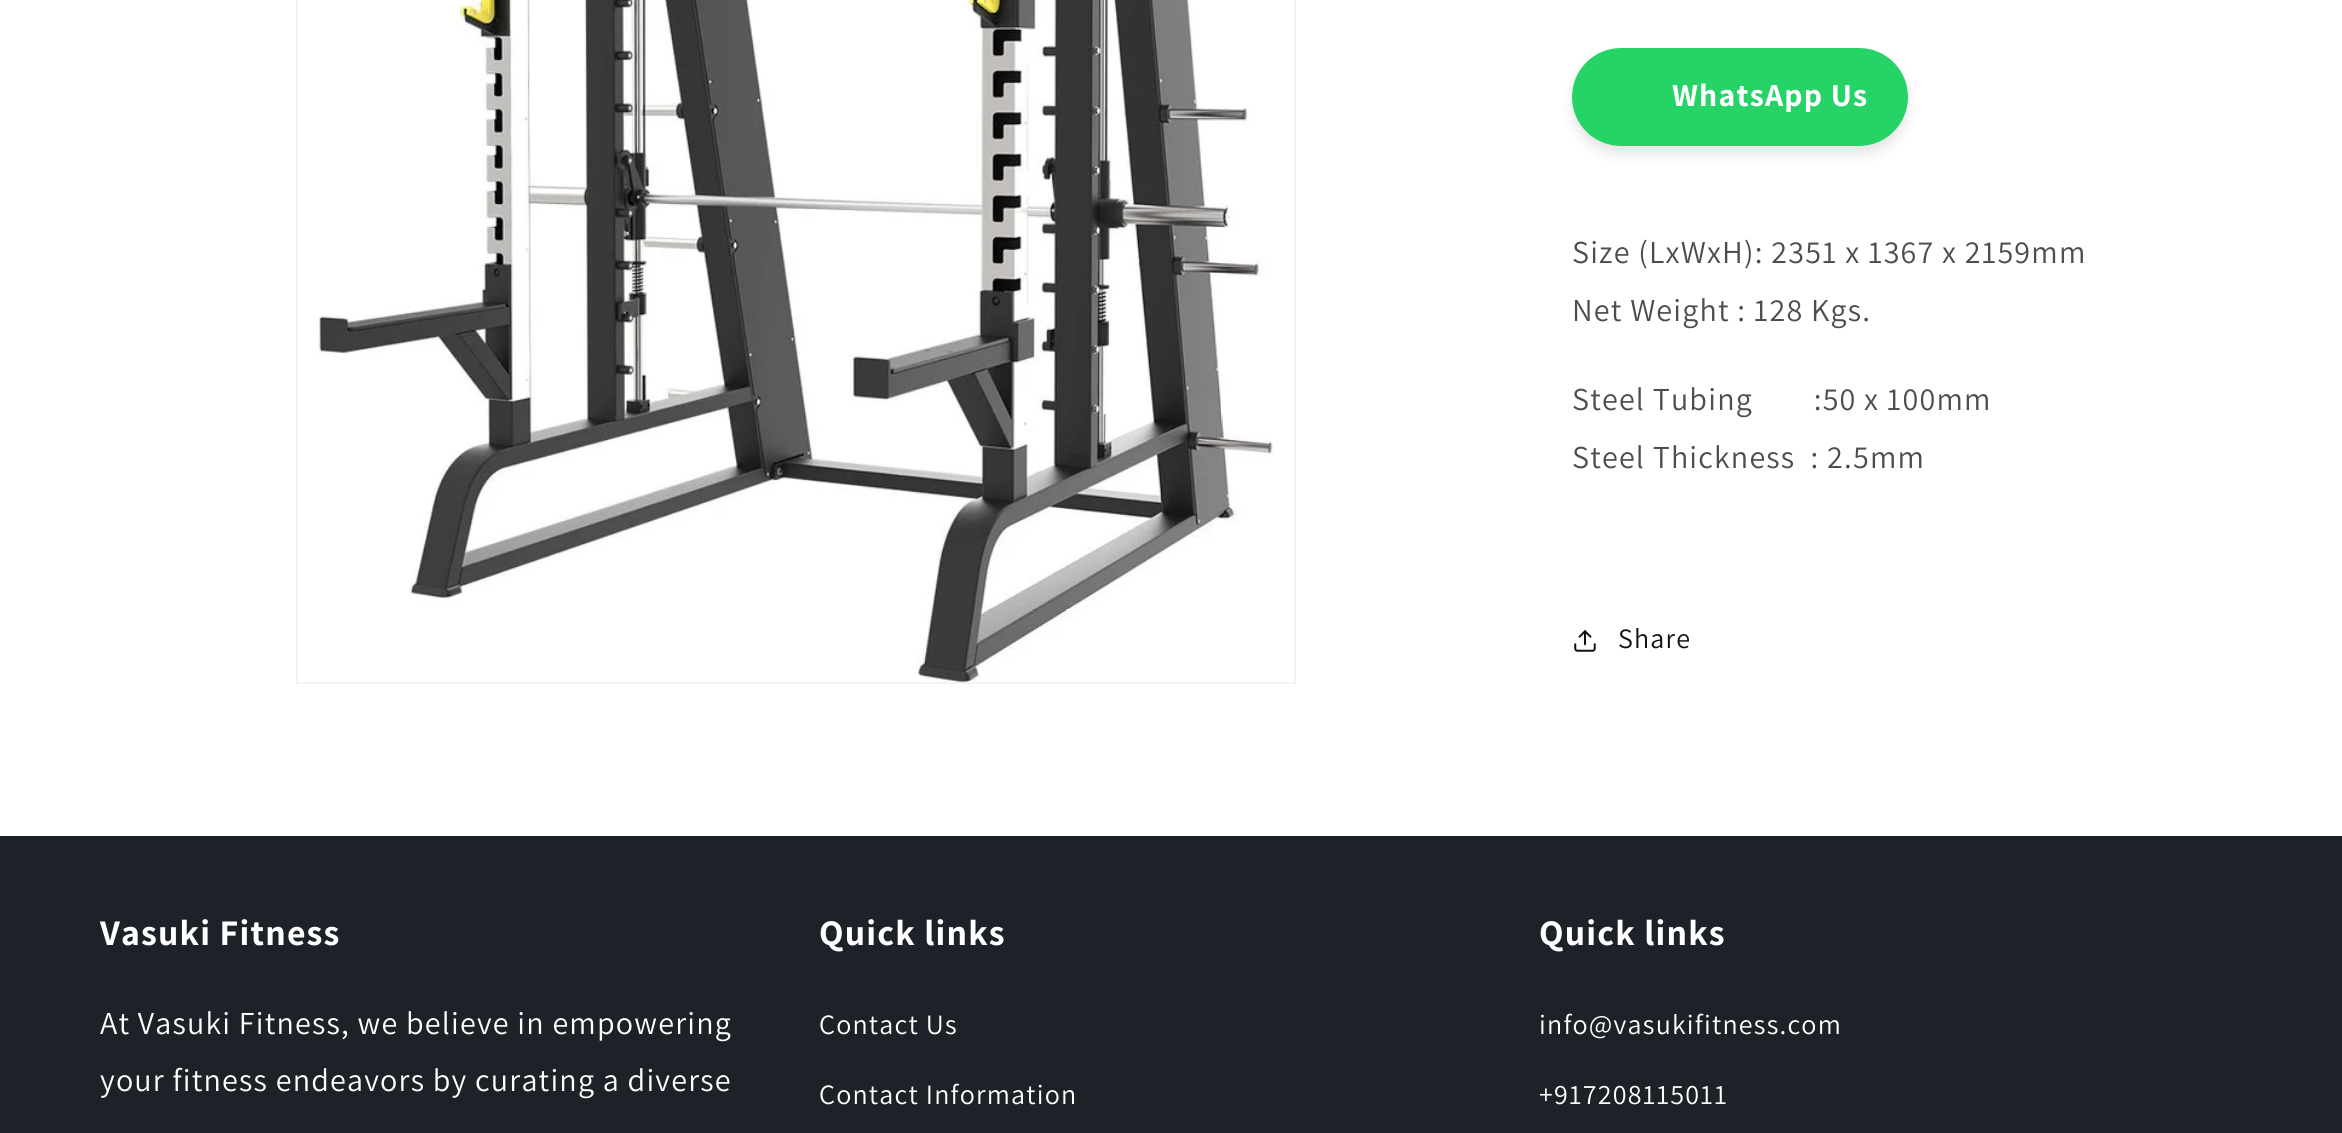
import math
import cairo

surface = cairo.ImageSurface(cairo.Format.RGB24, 2342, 1133)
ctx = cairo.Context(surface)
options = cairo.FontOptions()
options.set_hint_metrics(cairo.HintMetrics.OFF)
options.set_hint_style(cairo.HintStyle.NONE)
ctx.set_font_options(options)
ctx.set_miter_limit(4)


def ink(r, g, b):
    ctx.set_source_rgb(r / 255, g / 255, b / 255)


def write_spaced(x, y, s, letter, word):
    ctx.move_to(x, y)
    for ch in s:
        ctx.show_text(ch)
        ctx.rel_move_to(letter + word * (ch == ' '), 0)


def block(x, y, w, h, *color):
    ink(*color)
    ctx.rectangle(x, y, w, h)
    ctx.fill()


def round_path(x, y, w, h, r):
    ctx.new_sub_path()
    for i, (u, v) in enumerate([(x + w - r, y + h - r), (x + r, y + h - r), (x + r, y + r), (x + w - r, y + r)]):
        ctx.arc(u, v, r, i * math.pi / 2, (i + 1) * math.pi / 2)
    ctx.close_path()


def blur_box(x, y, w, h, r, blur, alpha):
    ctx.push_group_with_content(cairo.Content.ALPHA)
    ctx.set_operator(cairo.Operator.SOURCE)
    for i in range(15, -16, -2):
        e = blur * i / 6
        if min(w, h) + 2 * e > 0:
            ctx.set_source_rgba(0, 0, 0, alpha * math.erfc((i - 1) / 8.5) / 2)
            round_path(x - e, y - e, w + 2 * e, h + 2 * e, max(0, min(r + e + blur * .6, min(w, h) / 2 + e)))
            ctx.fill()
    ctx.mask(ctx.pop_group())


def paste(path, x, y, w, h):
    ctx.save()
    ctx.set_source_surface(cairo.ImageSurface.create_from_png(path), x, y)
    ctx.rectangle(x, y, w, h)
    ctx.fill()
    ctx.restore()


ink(255, 255, 255)
ctx.paint()
ctx.rectangle(297, -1, 998, 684)
ink(243, 243, 243)
ctx.stroke()
paste("pic1.png", 314, 0, 959, 682)
ink(0, 0, 0)
blur_box(1572, 56, 336, 98, 49, 6, 0.1)
ink(37, 211, 102)
round_path(1572, 48, 336, 98, 49)
ctx.fill()
ctx.select_font_face("Assistant", cairo.FontSlant.NORMAL, cairo.FontWeight.BOLD)
ctx.set_font_size(32)
ink(255, 255, 255)
write_spaced(1672, 106, "WhatsApp Us", 1.2, 0)
ctx.select_font_face("Assistant")
ink(77, 77, 77)
write_spaced(1572, 263, "Size (LxWxH): 2351 x 1367 x 2159mm", 1.2, 0)
write_spaced(1572, 321, "Net Weight : 128 Kgs.", 1.2, 0)
write_spaced(1572, 410, "Steel Tubing        :50 x 100mm", 1.2, 0)
write_spaced(1572, 468, "Steel Thickness  : 2.5mm", 1.2, 0)
paste("pic2.png", 1574, 630, 22, 22)
ctx.set_font_size(28)
ink(18, 18, 18)
write_spaced(1618, 648, "Share", 1.2, 0)
block(0, 838, 2342, 295, 29, 34, 40)
block(0, 836, 2342, 2, 28, 33, 38)
ctx.select_font_face("Assistant", cairo.FontSlant.NORMAL, cairo.FontWeight.BOLD)
ctx.set_font_size(36)
ink(255, 255, 255)
write_spaced(100, 945, "Vasuki Fitness", 1.2, 0)
ctx.select_font_face("Assistant")
ctx.set_font_size(32)
write_spaced(100, 1034, "At Vasuki Fitness, we believe in empowering", 1.2, 0)
write_spaced(100, 1091, "your fitness endeavors by curating a diverse", 1.2, 0)
ctx.select_font_face("Assistant", cairo.FontSlant.NORMAL, cairo.FontWeight.BOLD)
ctx.set_font_size(36)
write_spaced(819, 945, "Quick links", 1.2, 0)
ctx.select_font_face("Assistant")
ctx.set_font_size(28)
write_spaced(819, 1034, "Contact Us", 1.2, 0)
write_spaced(819, 1104, "Contact Information", 1.2, 0)
ctx.select_font_face("Assistant", cairo.FontSlant.NORMAL, cairo.FontWeight.BOLD)
ctx.set_font_size(36)
write_spaced(1539, 945, "Quick links", 1.2, 0)
ctx.select_font_face("Assistant")
ctx.set_font_size(28)
write_spaced(1539, 1034, "info@vasukifitness.com", 1.2, 0)
write_spaced(1539, 1104, "+917208115011", 1.2, 0)
surface.write_to_png("screenshot.png")
